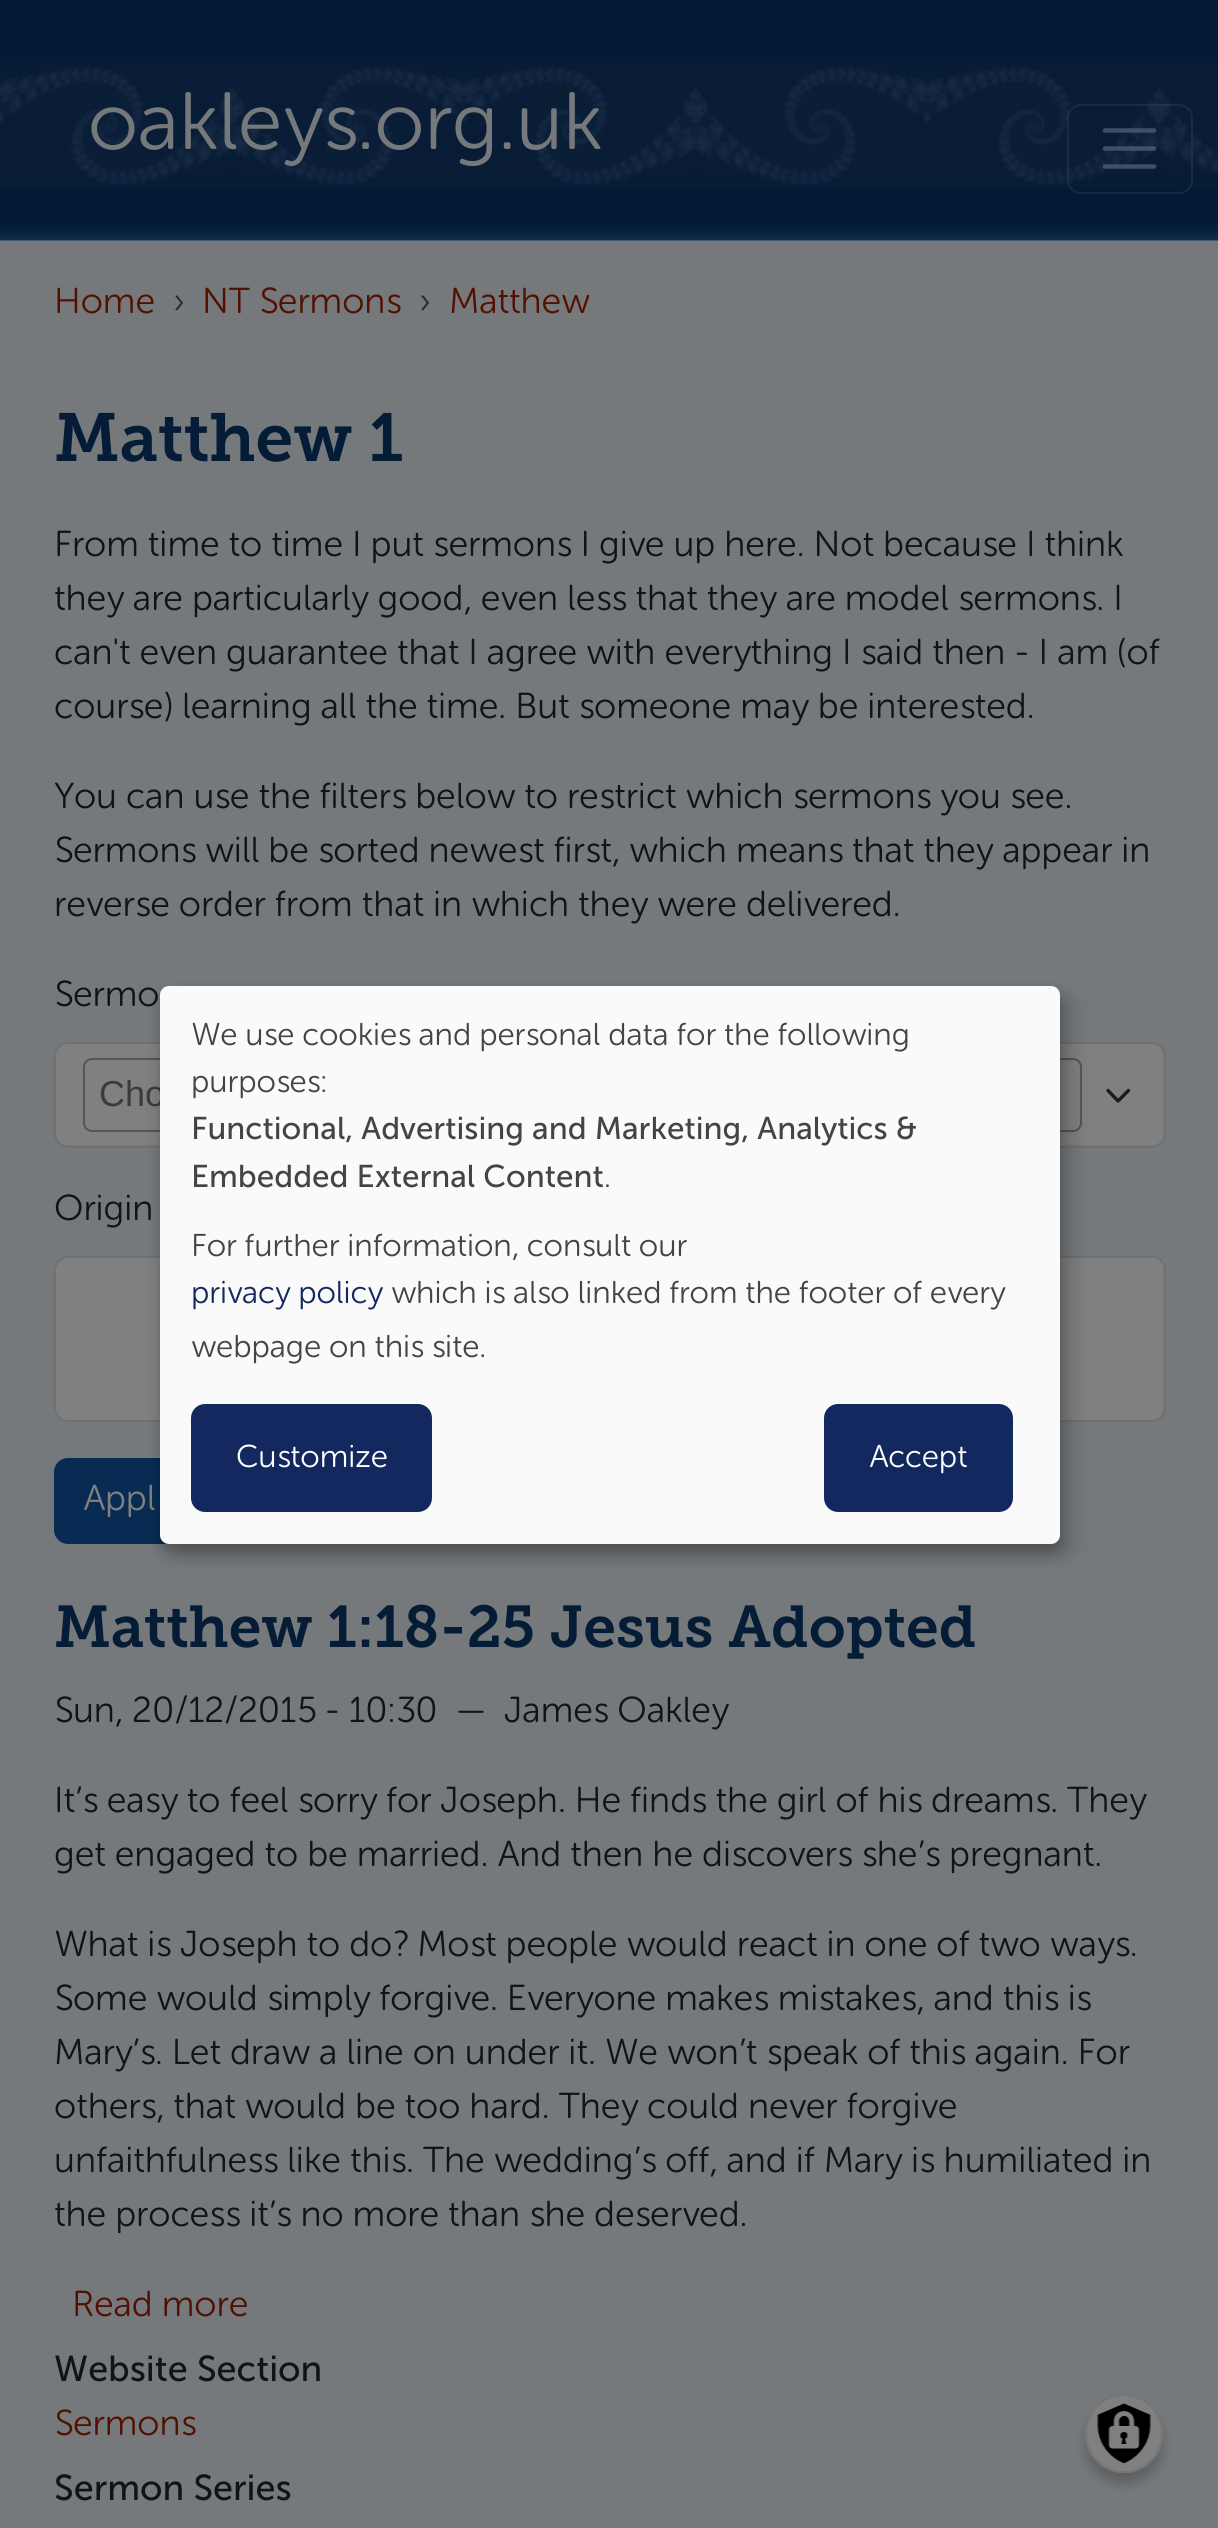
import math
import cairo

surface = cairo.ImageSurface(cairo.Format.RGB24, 1218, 2528)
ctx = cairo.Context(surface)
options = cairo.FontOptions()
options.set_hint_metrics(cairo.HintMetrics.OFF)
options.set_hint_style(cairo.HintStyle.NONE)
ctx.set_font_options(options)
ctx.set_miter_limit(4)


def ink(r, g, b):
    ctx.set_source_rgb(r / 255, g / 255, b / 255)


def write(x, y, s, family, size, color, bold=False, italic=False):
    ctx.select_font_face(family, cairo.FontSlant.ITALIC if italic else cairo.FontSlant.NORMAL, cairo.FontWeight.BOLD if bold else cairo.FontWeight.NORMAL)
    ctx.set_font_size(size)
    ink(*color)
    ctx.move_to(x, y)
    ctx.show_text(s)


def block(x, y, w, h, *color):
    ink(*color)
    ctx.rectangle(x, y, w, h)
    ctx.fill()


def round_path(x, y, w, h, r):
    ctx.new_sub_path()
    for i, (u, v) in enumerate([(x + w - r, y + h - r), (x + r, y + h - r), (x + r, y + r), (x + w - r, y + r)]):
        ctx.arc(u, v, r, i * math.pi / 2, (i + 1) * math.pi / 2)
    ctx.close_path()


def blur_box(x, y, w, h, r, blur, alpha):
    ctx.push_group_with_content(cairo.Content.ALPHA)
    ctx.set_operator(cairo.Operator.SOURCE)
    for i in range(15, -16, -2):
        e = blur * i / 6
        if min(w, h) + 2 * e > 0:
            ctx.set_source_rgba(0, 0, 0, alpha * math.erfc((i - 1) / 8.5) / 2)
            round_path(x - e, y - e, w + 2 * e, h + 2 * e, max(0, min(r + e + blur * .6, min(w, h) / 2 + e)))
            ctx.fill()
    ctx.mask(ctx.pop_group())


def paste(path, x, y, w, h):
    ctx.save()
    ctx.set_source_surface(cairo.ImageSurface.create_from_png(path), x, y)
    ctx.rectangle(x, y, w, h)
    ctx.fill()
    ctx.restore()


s1 = dict(family="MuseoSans", size=81, color=(118, 121, 124))
s2 = dict(family="MuseoSans", size=36, color=(82, 17, 0))
s3 = dict(family="MuseoSans", size=36, color=(42, 44, 47))
s4 = dict(family="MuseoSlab", size=67.75, color=(4, 28, 53))
s5 = dict(family="MuseoSans", size=36, color=(17, 19, 21))
s6 = dict(family="Liberation Sans", size=36, color=(59, 59, 59))
s7 = dict(family="MuseoSans", size=36, color=(128, 128, 128))
s8 = dict(family="MuseoSlab", size=58.7, color=(4, 28, 53))
s9 = dict(family="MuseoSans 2", size=36, color=(17, 19, 21))
s10 = dict(family="MuseoSans", size=31.5, color=(68, 68, 68))
s11 = dict(family="MuseoSans 2", size=31.5, color=(68, 68, 68))
s12 = dict(family="MuseoSans", size=31.5, color=(18, 40, 95))
s13 = dict(family="MuseoSans", size=31.5, color=(255, 255, 255))

ink(255, 255, 255)
ctx.paint()
paste("pic2.png", 0, 240, 1218, 1)
paste("pic1.png", 0, 0, 1218, 241)
write(88, 149, "oakleys.org.uk", **s1)
round_path(1068, 105, 124, 88, 13)
ctx.set_source_rgba(0.278, 0.353, 0.439, 0.25)
ctx.stroke()
ctx.new_path()
ctx.move_to(1105, 130.5)
ctx.line_to(1154, 130.5)
ctx.move_to(1105, 148.5)
ctx.line_to(1154, 148.5)
ctx.move_to(1105, 166.5)
ctx.line_to(1154, 166.5)
ctx.set_source_rgba(0.278, 0.353, 0.439, 0.85)
ctx.set_line_width(4.5)
ctx.set_line_cap(cairo.LineCap.ROUND)
ctx.stroke()
block(0, 241, 1218, 2287, 118, 121, 124)
write(54, 313, "Home", **s2)
write(173, 313, "›", **s3)
write(202, 313, "NT Sermons", **s2)
write(419, 313, "›", **s3)
write(449, 313, "Matthew", **s2)
write(54, 461, "Matthew 1", **s4)
write(54, 556, "From time to time I put sermons I give up here. Not because I think", **s5)
write(54, 610, "they are particularly good, even less that they are model sermons. I", **s5)
write(54, 664, "can't even guarantee that I agree with everything I said then - I am (of", **s5)
write(54, 718, "course) learning all the time. But someone may be interested.", **s5)
write(54, 808, "You can use the filters below to restrict which sermons you see.", **s5)
write(54, 862, "Sermons will be sorted newest first, which means that they appear in", **s5)
write(54, 916, "reverse order from that in which they were delivered.", **s5)
write(54, 1006, "Sermo", **s5)
ink(128, 128, 128)
round_path(56, 1044, 1107, 101, 11)
ctx.fill()
ctx.new_path()
ctx.move_to(1108, 1090.5)
ctx.line_to(1118, 1101)
ctx.line_to(1128.5, 1090.5)
ink(26, 29, 32)
ctx.set_line_width(3.4)
ctx.set_line_join(cairo.LineJoin.ROUND)
ctx.stroke()
round_path(55, 1043, 1110, 104, 13)
ink(111, 113, 115)
ctx.set_line_width(2)
ctx.set_line_cap(cairo.LineCap.BUTT)
ctx.set_line_join(cairo.LineJoin.MITER)
ctx.stroke()
round_path(84, 1059, 997, 72, 8)
ink(85, 85, 85)
ctx.stroke()
write(99, 1106, "Cho", **s6)
write(54, 1220, "Origin", **s5)
ink(128, 128, 128)
round_path(56, 1258, 1107, 162, 11)
ctx.fill()
round_path(55, 1257, 1110, 164, 13)
ink(111, 113, 115)
ctx.stroke()
ink(7, 43, 83)
round_path(55, 1459, 147, 84, 13)
ctx.fill_preserve()
ctx.stroke()
write(83, 1510, "Appl", **s7)
write(54, 1647, "Matthew 1:18-25 Jesus Adopted", **s8)
write(54, 1722, "Sun, 20/12/2015 - 10:30", **s5)
write(456, 1722, "—", **s5)
write(504, 1722, "James Oakley", **s5)
write(54, 1812, "It’s easy to feel sorry for Joseph. He finds the girl of his dreams. They", **s5)
write(54, 1866, "get engaged to be married. And then he discovers she’s pregnant.", **s5)
write(54, 1956, "What is Joseph to do? Most people would react in one of two ways.", **s5)
write(54, 2010, "Some would simply forgive. Everyone makes mistakes, and this is", **s5)
write(54, 2064, "Mary’s. Let draw a line on under it. We won’t speak of this again. For", **s5)
write(54, 2118, "others, that would be too hard. They could never forgive", **s5)
write(54, 2172, "unfaithfulness like this. The wedding’s off, and if Mary is humiliated in", **s5)
write(54, 2226, "the process it’s no more than she deserved.", **s5)
write(72, 2316, "Read more", **s2)
write(54, 2381, "Website Section", **s9)
write(54, 2435, "Sermons", **s2)
write(54, 2500, "Sermon Series", **s9)
ink(0, 0, 0)
blur_box(171, 997, 900, 558, 9, 11, 0.19)
blur_box(160, 995, 900, 558, 9, 7, 0.2)
ink(250, 250, 250)
round_path(160, 986, 900, 558, 9)
ctx.fill()
write(191, 1045, "We use cookies and personal data for the following", **s10)
write(191, 1092, "purposes:", **s10)
write(191, 1139, "Functional, Advertising and Marketing, Analytics &", **s11)
write(191, 1187, "Embedded External Content", **s11)
write(604, 1187, ".", **s10)
write(191, 1256, "For further information, consult our", **s10)
write(191, 1303, "privacy policy", **s12)
write(391, 1303, "which is also linked from the footer of every", **s10)
write(191, 1357, "webpage on this site.", **s10)
ink(18, 40, 95)
round_path(194.5, 1407.5, 234, 101, 10.5)
ctx.fill_preserve()
ctx.set_line_width(7)
ctx.stroke()
write(236, 1467, "Customize", **s13)
ink(18, 40, 95)
round_path(827.5, 1407.5, 182, 101, 10.5)
ctx.fill_preserve()
ctx.stroke()
write(869, 1467, "Accept", **s13)
ink(0, 0, 0)
blur_box(1085, 2405, 78, 79, 39, 5.5, 0.2)
ink(128, 128, 128)
round_path(1085, 2394, 78, 79, 39)
ctx.fill()
paste("pic3.png", 1097, 2403, 54, 61)
round_path(1086, 2395, 76, 77, 38)
ink(117, 117, 117)
ctx.set_line_width(2)
ctx.stroke()
surface.write_to_png("screenshot.png")
